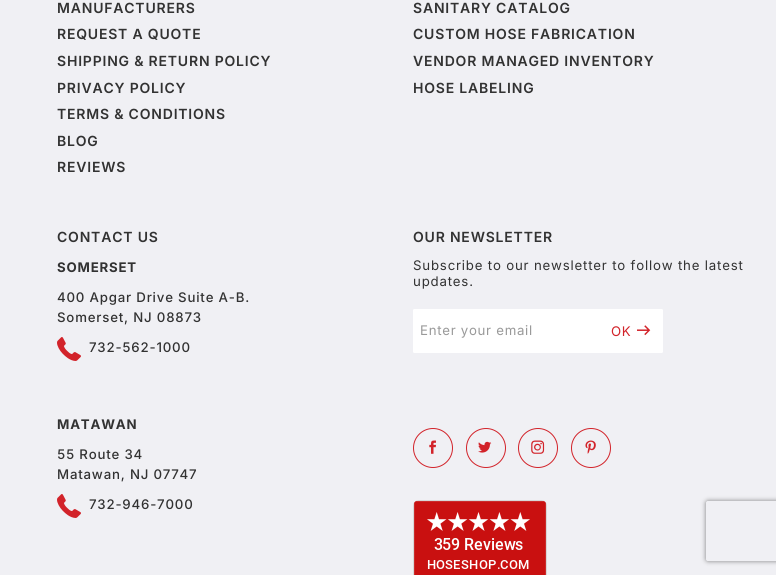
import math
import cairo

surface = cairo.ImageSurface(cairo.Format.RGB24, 776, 575)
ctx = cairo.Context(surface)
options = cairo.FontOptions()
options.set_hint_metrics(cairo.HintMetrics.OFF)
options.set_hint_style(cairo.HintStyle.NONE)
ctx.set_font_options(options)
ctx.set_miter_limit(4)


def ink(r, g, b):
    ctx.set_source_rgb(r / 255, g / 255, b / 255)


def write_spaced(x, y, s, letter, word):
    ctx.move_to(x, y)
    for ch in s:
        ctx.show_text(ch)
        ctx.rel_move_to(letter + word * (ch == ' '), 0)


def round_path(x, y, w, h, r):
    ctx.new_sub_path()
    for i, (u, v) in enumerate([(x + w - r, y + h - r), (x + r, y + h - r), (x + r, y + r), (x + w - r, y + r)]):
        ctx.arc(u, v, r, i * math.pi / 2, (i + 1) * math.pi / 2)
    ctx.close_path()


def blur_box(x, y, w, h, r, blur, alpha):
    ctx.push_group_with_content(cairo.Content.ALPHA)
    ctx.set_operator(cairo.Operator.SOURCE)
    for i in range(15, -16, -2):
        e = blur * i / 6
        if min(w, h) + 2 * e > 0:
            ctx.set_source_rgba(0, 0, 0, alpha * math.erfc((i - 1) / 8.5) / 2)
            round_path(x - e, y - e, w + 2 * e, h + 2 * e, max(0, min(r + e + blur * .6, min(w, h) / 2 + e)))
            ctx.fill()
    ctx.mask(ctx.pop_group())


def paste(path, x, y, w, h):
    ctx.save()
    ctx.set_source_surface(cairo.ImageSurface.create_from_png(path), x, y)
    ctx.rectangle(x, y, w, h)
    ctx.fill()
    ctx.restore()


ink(240, 240, 244)
ctx.paint()
ctx.select_font_face("Inter SemiBold")
ctx.set_font_size(14)
ink(50, 50, 50)
write_spaced(57, 13, "MANUFACTURERS", 0.8, 0)
write_spaced(57, 39, "REQUEST A QUOTE", 0.8, 0)
write_spaced(57, 66, "SHIPPING & RETURN POLICY", 0.8, 0)
write_spaced(57, 93, "PRIVACY POLICY", 0.8, 0)
write_spaced(57, 119, "TERMS & CONDITIONS", 0.8, 0)
write_spaced(57, 146, "BLOG", 0.8, 0)
write_spaced(57, 172, "REVIEWS", 0.8, 0)
write_spaced(413, 13, "SANITARY CATALOG", 0.8, 0)
write_spaced(413, 39, "CUSTOM HOSE FABRICATION", 0.8, 0)
write_spaced(413, 66, "VENDOR MANAGED INVENTORY", 0.8, 0)
write_spaced(413, 93, "HOSE LABELING", 0.8, 0)
write_spaced(57, 242, "CONTACT US", 0.8, 0)
ctx.select_font_face("Inter", cairo.FontSlant.NORMAL, cairo.FontWeight.BOLD)
ctx.set_font_size(13.25)
write_spaced(57, 272, "SOMERSET", 0.8, 0)
ctx.select_font_face("Inter Medium")
write_spaced(57, 302, "400 Apgar Drive Suite A-B.", 0.8, 0)
write_spaced(57, 322, "Somerset, NJ 08873", 0.8, 0)
paste("pic1.png", 57, 337, 24, 24)
write_spaced(89, 352, "732-562-1000", 0.8, 0)
ctx.select_font_face("Inter", cairo.FontSlant.NORMAL, cairo.FontWeight.BOLD)
write_spaced(57, 429, "MATAWAN", 0.8, 0)
ctx.select_font_face("Inter Medium")
write_spaced(57, 459, "55 Route 34", 0.8, 0)
write_spaced(57, 479, "Matawan, NJ 07747", 0.8, 0)
paste("pic1.png", 57, 494, 24, 24)
write_spaced(89, 509, "732-946-7000", 0.8, 0)
ctx.select_font_face("Inter SemiBold")
ctx.set_font_size(14)
write_spaced(413, 242, "OUR NEWSLETTER", 0.8, 0)
ctx.select_font_face("Inter")
ctx.set_font_size(13.25)
write_spaced(413, 270, "Subscribe to our newsletter to follow the latest", 0.8, 0)
write_spaced(413, 286, "updates.", 0.8, 0)
ink(255, 255, 255)
ctx.new_path()
ctx.move_to(414.5, 309)
ctx.line_to(599, 309)
ctx.line_to(599, 353)
ctx.line_to(414.5, 353)
ctx.curve_to(413.5, 353, 413, 352.5, 413, 351.5)
ctx.line_to(413, 310.5)
ctx.curve_to(413, 309.5, 413.5, 309, 414.5, 309)
ctx.close_path()
ctx.fill()
ink(153, 153, 153)
write_spaced(420, 335, "Enter your email", 0.7, 0)
ink(255, 255, 255)
ctx.new_path()
ctx.move_to(599, 309)
ctx.line_to(661.5, 309)
ctx.curve_to(662.5, 309, 663, 309.5, 663, 310.5)
ctx.line_to(663, 351.5)
ctx.curve_to(663, 352.5, 662.5, 353, 661.5, 353)
ctx.line_to(599, 353)
ctx.close_path()
ctx.fill()
ink(210, 35, 42)
write_spaced(611, 336, "OK", 0.7, 0)
ctx.select_font_face("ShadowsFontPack")
write_spaced(637, 336, ";", 0.7, 0)
ctx.new_path()
ctx.arc(433, 448, 19.5, 0, 2 * math.pi)
ctx.set_line_width(1)
ctx.stroke()
paste("pic2.png", 429, 440, 7, 14)
ctx.arc(486, 448, 19.5, 0, 2 * math.pi)
ctx.stroke()
paste("pic3.png", 478, 441, 14, 12)
ctx.arc(538, 448, 19.5, 0, 2 * math.pi)
ctx.stroke()
paste("pic4.png", 531, 440, 14, 14)
ctx.arc(591, 448, 19.5, 0, 2 * math.pi)
ctx.stroke()
paste("pic5.png", 585, 440, 11, 14)
paste("pic6.png", 413, 500, 134, 75)
ctx.save()
ctx.set_fill_rule(cairo.FillRule.EVEN_ODD)
ctx.new_path()
ctx.move_to(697, 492)
ctx.line_to(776, 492)
ctx.line_to(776, 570)
ctx.line_to(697, 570)
ctx.close_path()
ctx.move_to(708, 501)
ctx.line_to(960, 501)
ctx.curve_to(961, 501, 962, 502, 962, 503)
ctx.line_to(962, 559)
ctx.curve_to(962, 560, 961, 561, 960, 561)
ctx.line_to(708, 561)
ctx.curve_to(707, 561, 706, 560, 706, 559)
ctx.line_to(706, 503)
ctx.curve_to(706, 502, 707, 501, 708, 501)
ctx.close_path()
ctx.clip()
ink(128, 128, 128)
blur_box(706, 501, 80, 60, 2, 2.5, 1)
ctx.restore()
surface.write_to_png("screenshot.png")
